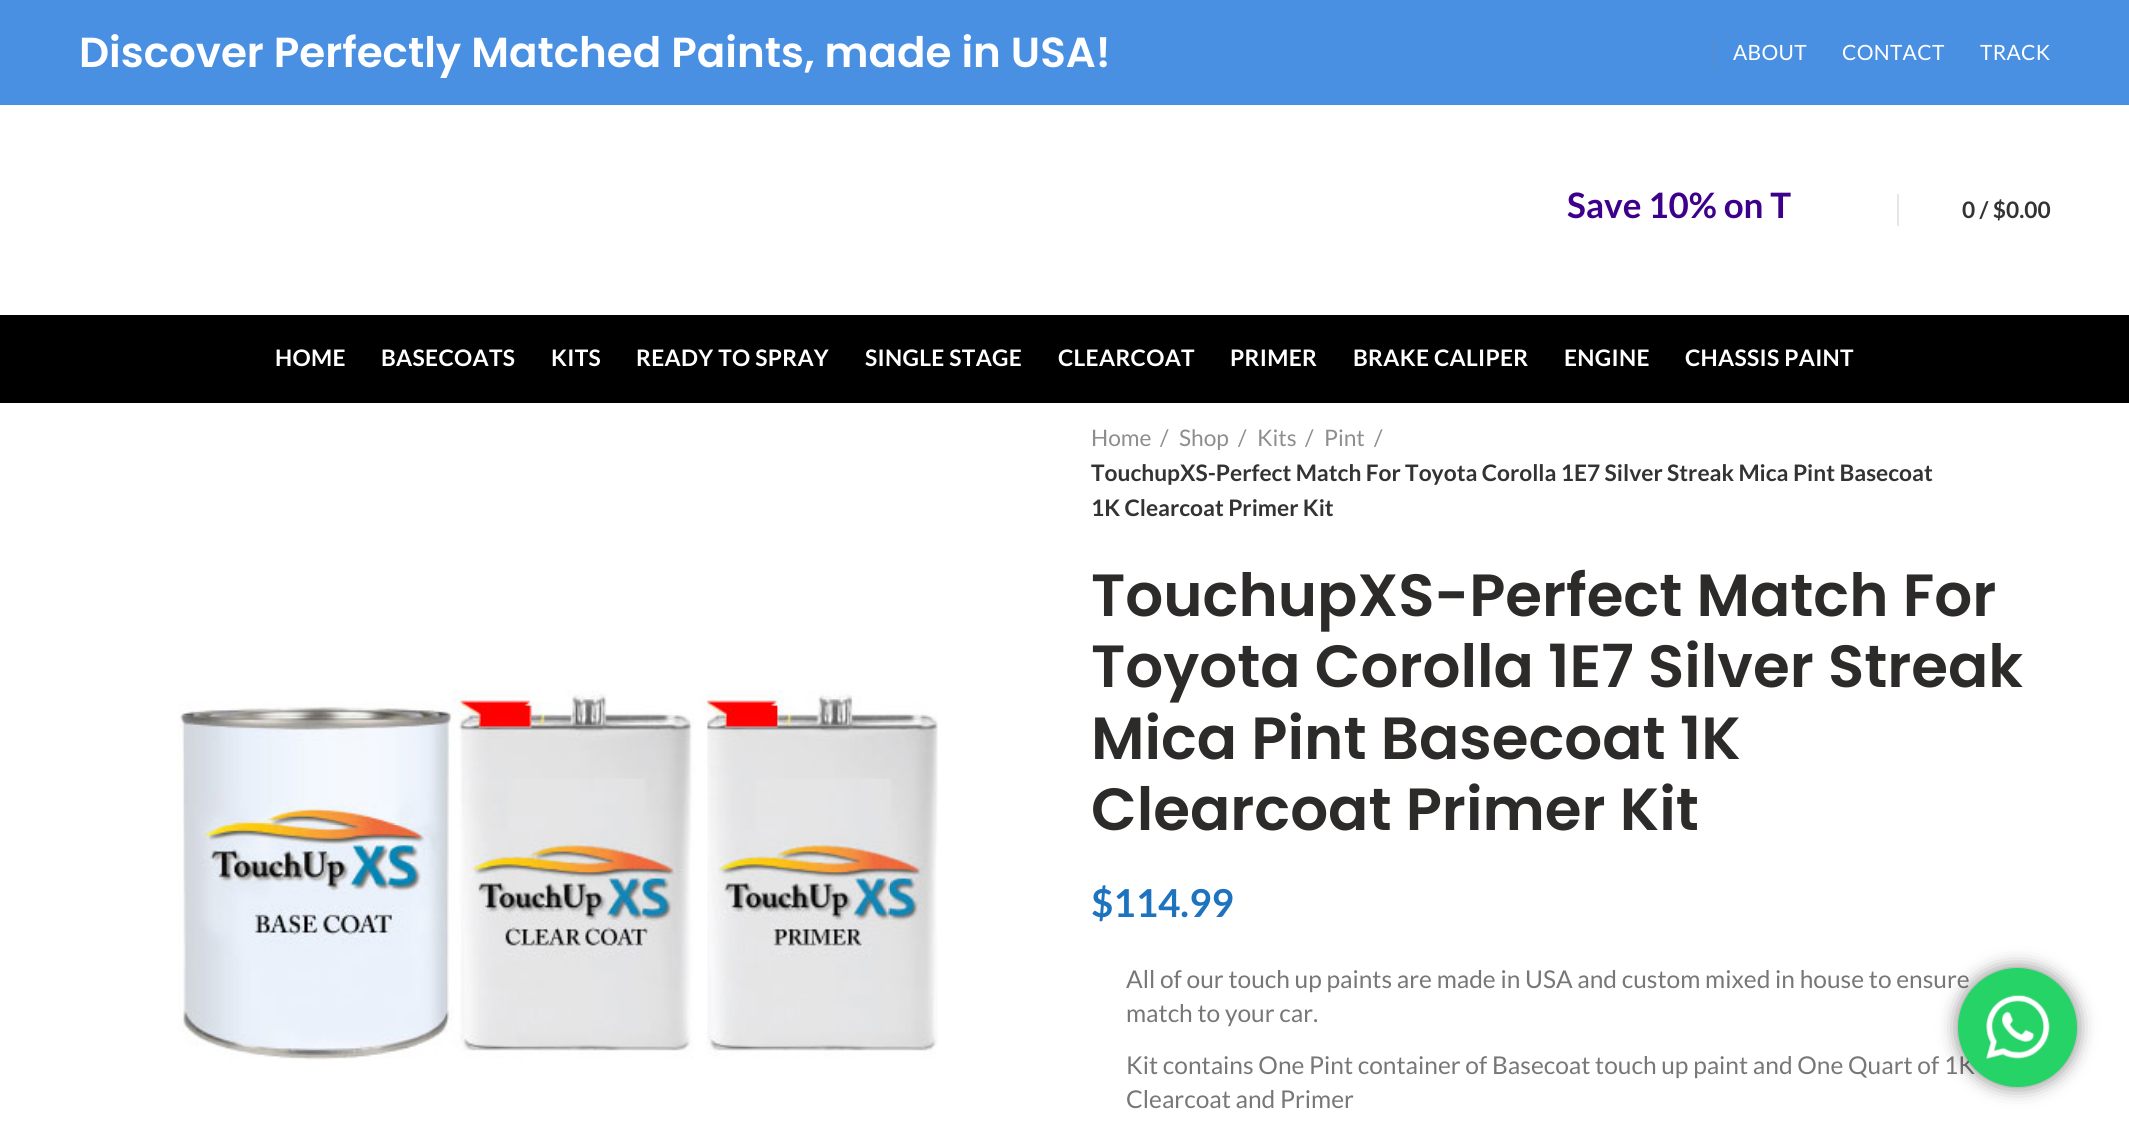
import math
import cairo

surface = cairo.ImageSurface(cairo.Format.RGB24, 2129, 1139)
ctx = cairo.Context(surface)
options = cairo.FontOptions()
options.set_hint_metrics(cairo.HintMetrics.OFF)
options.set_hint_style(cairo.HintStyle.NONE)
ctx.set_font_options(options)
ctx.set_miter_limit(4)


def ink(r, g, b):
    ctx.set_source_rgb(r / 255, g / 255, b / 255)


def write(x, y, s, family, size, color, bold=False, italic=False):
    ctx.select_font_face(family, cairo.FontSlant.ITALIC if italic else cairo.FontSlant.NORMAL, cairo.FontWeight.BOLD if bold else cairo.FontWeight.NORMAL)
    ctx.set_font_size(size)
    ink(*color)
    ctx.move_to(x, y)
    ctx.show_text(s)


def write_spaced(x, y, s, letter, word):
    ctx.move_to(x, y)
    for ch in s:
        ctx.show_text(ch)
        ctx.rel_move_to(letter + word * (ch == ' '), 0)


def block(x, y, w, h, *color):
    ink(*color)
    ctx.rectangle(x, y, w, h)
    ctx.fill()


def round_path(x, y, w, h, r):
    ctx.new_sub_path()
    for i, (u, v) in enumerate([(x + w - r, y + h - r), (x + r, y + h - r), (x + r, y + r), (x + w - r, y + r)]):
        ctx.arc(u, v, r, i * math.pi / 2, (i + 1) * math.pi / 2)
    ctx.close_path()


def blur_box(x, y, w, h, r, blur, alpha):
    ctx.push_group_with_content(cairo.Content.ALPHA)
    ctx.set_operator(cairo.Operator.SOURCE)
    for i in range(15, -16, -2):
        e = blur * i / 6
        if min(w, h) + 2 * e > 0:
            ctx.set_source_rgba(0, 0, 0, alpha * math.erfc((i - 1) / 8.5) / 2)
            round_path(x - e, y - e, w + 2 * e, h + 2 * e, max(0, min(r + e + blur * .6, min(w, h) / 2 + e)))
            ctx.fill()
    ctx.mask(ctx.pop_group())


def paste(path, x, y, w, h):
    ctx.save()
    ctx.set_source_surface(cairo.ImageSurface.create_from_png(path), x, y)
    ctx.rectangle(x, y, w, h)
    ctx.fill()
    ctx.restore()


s1 = dict(family="Poppins SemiBold", size=42, color=(255, 255, 255))
s2 = dict(family="Lato", size=35, color=(60, 0, 139), bold=True)
s3 = dict(family="Lato", size=22.75, color=(51, 51, 51), bold=True)
s4 = dict(family="Lato", size=22.75, color=(142, 142, 142))
s5 = dict(family="Poppins SemiBold", size=59.5, color=(45, 42, 42))
s6 = dict(family="Lato", size=38.5, color=(30, 115, 190), bold=True)
s7 = dict(family="Lato", size=24.5, color=(119, 119, 119))

ink(255, 255, 255)
ctx.paint()
block(0, 0, 2129, 105, 74, 144, 226)
write(79, 67, "Discover Perfectly Matched Paints, made in USA!", **s1)
block(1713, 37, 2, 31, 85, 141, 207)
ctx.select_font_face("Lato")
ctx.set_font_size(21)
ink(255, 255, 255)
write_spaced(1733, 60, "ABOUT", 0.3, 0)
write_spaced(1842, 60, "CONTACT", 0.3, 0)
write_spaced(1980, 60, "TRACK", 0.3, 0)
write(1567, 218, "Save 10% on T", **s2)
block(1897, 194, 2, 32, 230, 230, 230)
write(1962, 218, "0 / $0.00", **s3)
block(0, 315, 2129, 88, 0, 0, 0)
ink(255, 255, 255)
write_spaced(275, 366, "HOME", 0.3, 0)
write_spaced(381, 366, "BASECOATS", 0.3, 0)
write_spaced(551, 366, "KITS", 0.3, 0)
write_spaced(636, 366, "READY TO SPRAY", 0.3, 0)
write_spaced(865, 366, "SINGLE STAGE", 0.3, 0)
write_spaced(1058, 366, "CLEARCOAT", 0.3, 0)
write_spaced(1230, 366, "PRIMER", 0.3, 0)
write_spaced(1353, 366, "BRAKE CALIPER", 0.3, 0)
write_spaced(1564, 366, "ENGINE", 0.3, 0)
write_spaced(1685, 366, "CHASSIS PAINT", 0.3, 0)
paste("pic1.png", 178, 690, 760, 370)
write(1091, 446, "Home", **s4)
write(1160, 446, "/", **s4)
write(1179, 446, "Shop", **s4)
write(1238, 446, "/", **s4)
write(1257, 446, "Kits", **s4)
write(1305, 446, "/", **s4)
write(1324, 446, "Pint", **s4)
write(1374, 446, "/", **s4)
write(1091, 481, "TouchupXS-Perfect Match For Toyota Corolla 1E7 Silver Streak Mica Pint Basecoat", **s3)
write(1091, 516, "1K Clearcoat Primer Kit", **s3)
write(1091, 616, "TouchupXS-Perfect Match For", **s5)
write(1091, 687, "Toyota Corolla 1E7 Silver Streak", **s5)
write(1091, 759, "Mica Pint Basecoat 1K", **s5)
write(1091, 830, "Clearcoat Primer Kit", **s5)
write(1091, 917, "$114.99", **s6)
write(1126, 988, "All of our touch up paints are made in USA and custom mixed in house to ensure", **s7)
write(1126, 1022, "match to your car.", **s7)
write(1126, 1074, "Kit contains One Pint container of Basecoat touch up paint and One Quart of 1K", **s7)
write(1126, 1108, "Clearcoat and Primer", **s7)
ink(0, 0, 0)
blur_box(1958, 968, 119, 119, 59.5, 9.5, 0.5)
ink(37, 211, 102)
ctx.arc(2017.5, 1027.5, 59.5, 0, 2 * math.pi)
ctx.fill()
paste("pic2.png", 1986, 995, 64, 64)
surface.write_to_png("screenshot.png")
